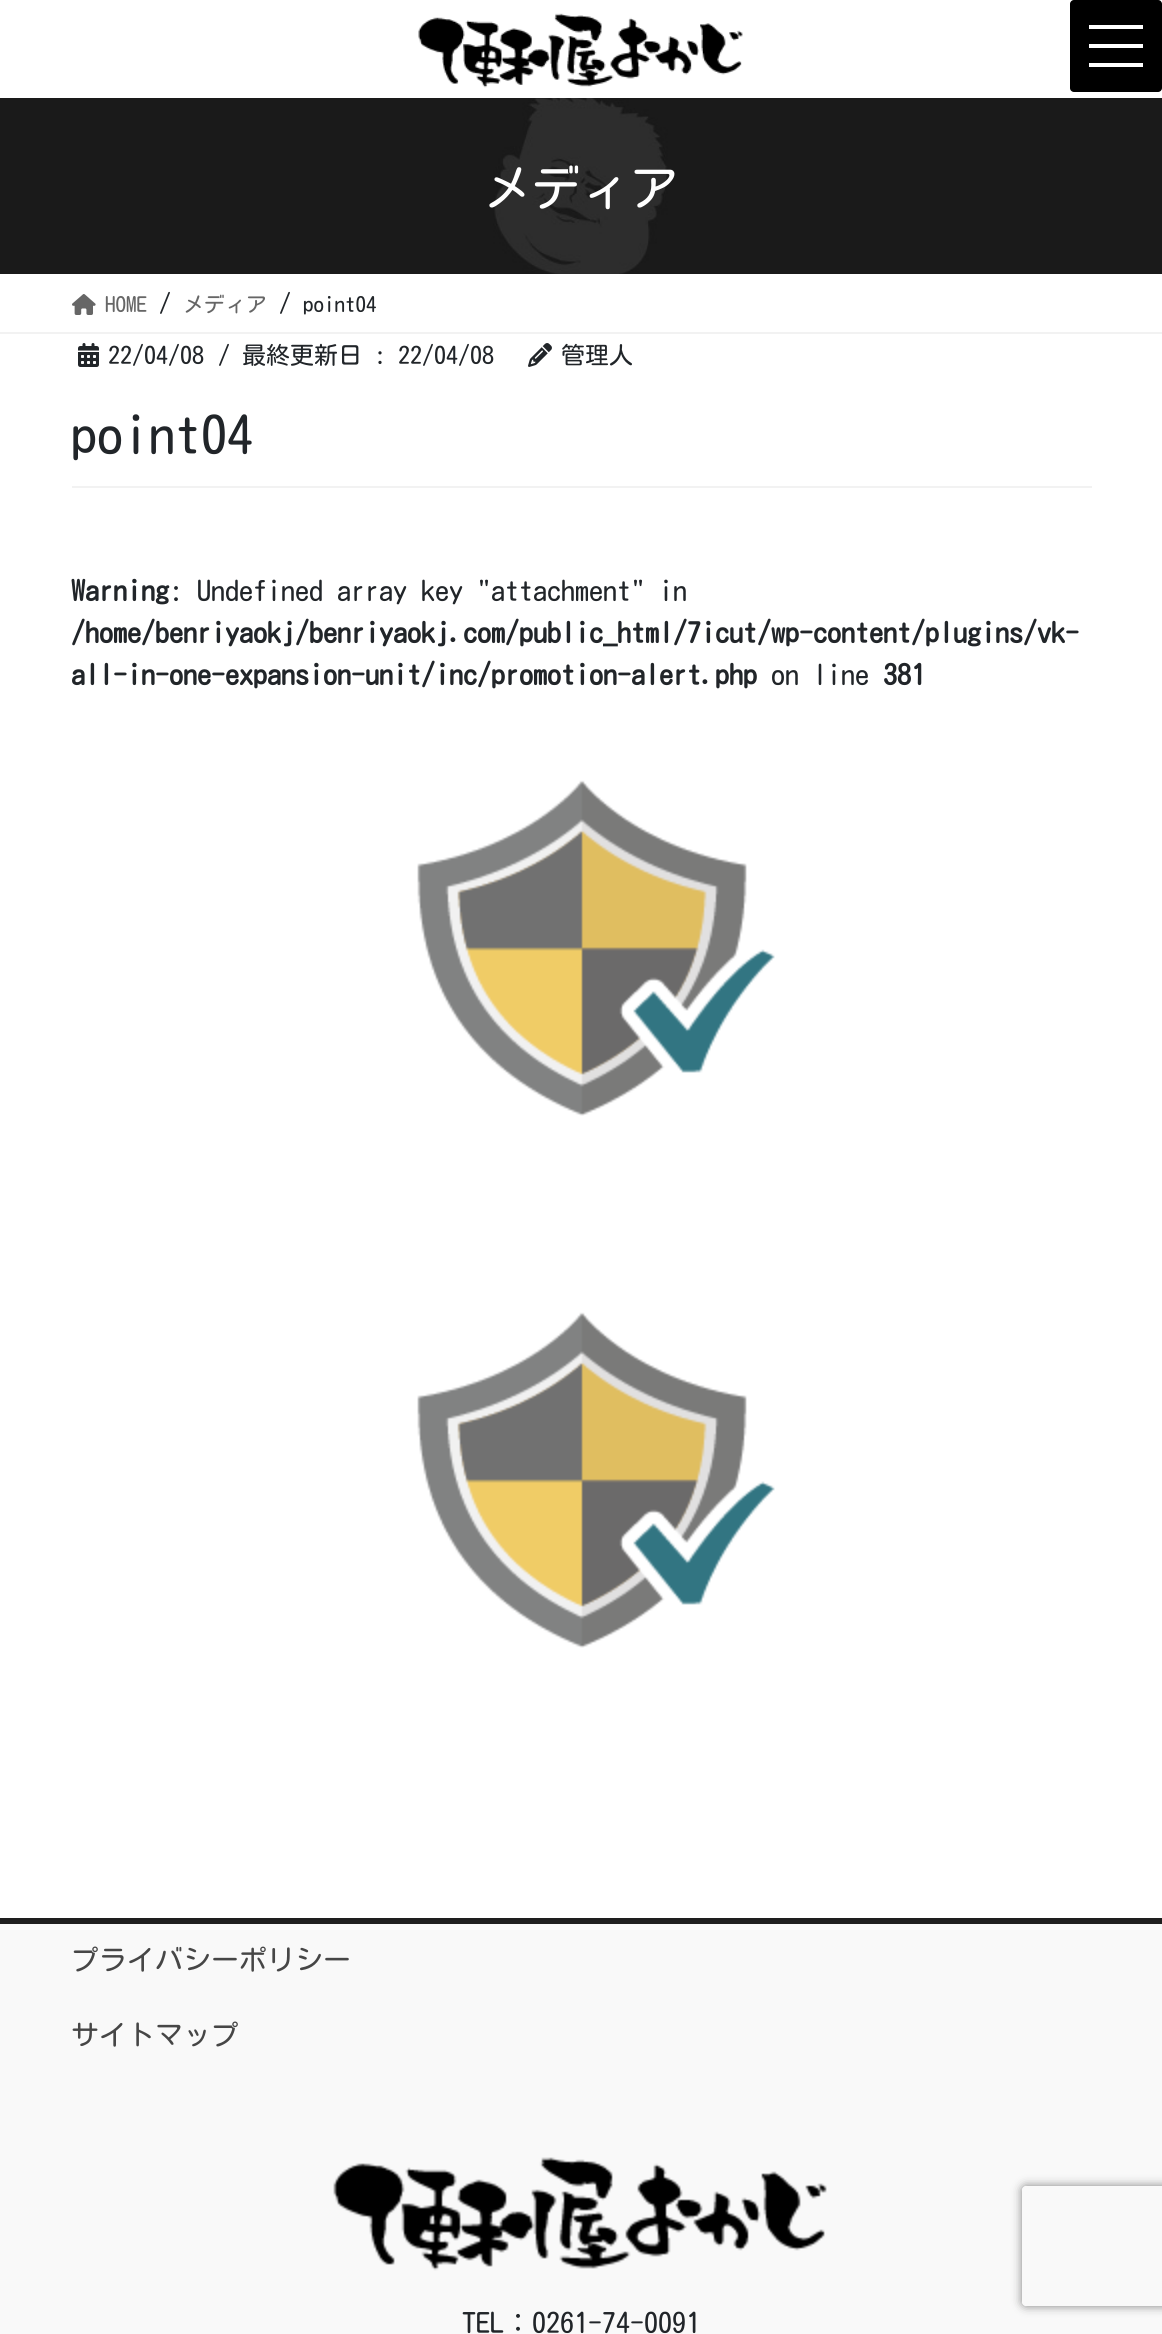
import math
import cairo

surface = cairo.ImageSurface(cairo.Format.RGB24, 1162, 2334)
ctx = cairo.Context(surface)
options = cairo.FontOptions()
options.set_hint_metrics(cairo.HintMetrics.OFF)
options.set_hint_style(cairo.HintStyle.NONE)
ctx.set_font_options(options)
ctx.set_miter_limit(4)


def ink(r, g, b):
    ctx.set_source_rgb(r / 255, g / 255, b / 255)


def write(x, y, s, family, size, color, bold=False, italic=False):
    ctx.select_font_face(family, cairo.FontSlant.ITALIC if italic else cairo.FontSlant.NORMAL, cairo.FontWeight.BOLD if bold else cairo.FontWeight.NORMAL)
    ctx.set_font_size(size)
    ink(*color)
    ctx.move_to(x, y)
    ctx.show_text(s)


def block(x, y, w, h, *color):
    ink(*color)
    ctx.rectangle(x, y, w, h)
    ctx.fill()


def round_path(x, y, w, h, r):
    ctx.new_sub_path()
    for i, (u, v) in enumerate([(x + w - r, y + h - r), (x + r, y + h - r), (x + r, y + r), (x + w - r, y + r)]):
        ctx.arc(u, v, r, i * math.pi / 2, (i + 1) * math.pi / 2)
    ctx.close_path()


def blur_box(x, y, w, h, r, blur, alpha):
    ctx.push_group_with_content(cairo.Content.ALPHA)
    ctx.set_operator(cairo.Operator.SOURCE)
    for i in range(15, -16, -2):
        e = blur * i / 6
        if min(w, h) + 2 * e > 0:
            ctx.set_source_rgba(0, 0, 0, alpha * math.erfc((i - 1) / 8.5) / 2)
            round_path(x - e, y - e, w + 2 * e, h + 2 * e, max(0, min(r + e + blur * .6, min(w, h) / 2 + e)))
            ctx.fill()
    ctx.mask(ctx.pop_group())


def paste(path, x, y, w, h):
    ctx.save()
    ctx.set_source_surface(cairo.ImageSurface.create_from_png(path), x, y)
    ctx.rectangle(x, y, w, h)
    ctx.fill()
    ctx.restore()


s1 = dict(family="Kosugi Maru", size=49, color=(255, 255, 255))
s2 = dict(family="Kosugi Maru", size=21, color=(102, 102, 102))
s3 = dict(family="Kosugi Maru", size=24, color=(33, 37, 41))
s4 = dict(family="Kosugi Maru", size=21, color=(33, 37, 41))
s5 = dict(family="Kosugi Maru", size=52, color=(33, 37, 41))
s6 = dict(family="Kosugi Maru", size=28, color=(33, 37, 41), bold=True)
s7 = dict(family="Kosugi Maru", size=28, color=(33, 37, 41))
s8 = dict(family="Kosugi Maru", size=28, color=(70, 70, 70))

ink(255, 255, 255)
ctx.paint()
paste("pic1.png", 418, 13, 325, 75)
ink(0, 0, 0)
round_path(1070, 0, 92, 92, 4)
ctx.fill()
block(1089, 25, 54, 4, 255, 255, 255)
block(1089, 44, 54, 4, 255, 255, 255)
block(1089, 63, 54, 4, 255, 255, 255)
paste("pic2.png", 0, 98, 1162, 176)
write(483, 206, "メディア", **s1)
block(0, 332, 1162, 2, 242, 242, 242)
paste("pic3.png", 72, 294, 24, 21)
write(105, 312, "HOME", **s2)
write(159, 312, "/", **s3)
write(183, 312, "メディア", **s2)
write(279, 312, "/", **s3)
write(303, 312, "point04", **s4)
block(72, 486, 1020, 2, 242, 242, 242)
paste("pic4.png", 78, 343, 21, 24)
write(108, 364, "22/04/08", **s3)
write(218, 364, "/ 最終更新日 : 22/04/08", **s3)
paste("pic5.png", 528, 343, 24, 24)
write(561, 364, "管理人", **s3)
write(71, 454, "point04", **s5)
write(71, 601, "Warning", **s6)
write(169, 601, ": Undefined array key \"attachment\" in", **s7)
write(71, 643, "/home/benriyaokj/benriyaokj.com/public_html/7icut/wp-content/plugins/vk-", **s6)
write(71, 685, "all-in-one-expansion-unit/inc/promotion-alert.php", **s6)
write(771, 685, "on line", **s7)
write(883, 685, "381", **s6)
paste("pic6.png", 417, 780, 358, 336)
paste("pic6.png", 417, 1312, 358, 336)
block(0, 1924, 1162, 410, 249, 249, 249)
block(0, 1918, 1162, 6, 30, 30, 30)
write(71, 1970, "プライバシーポリシー", **s8)
write(71, 2045, "サイトマップ", **s8)
paste("pic7.png", 333, 2157, 494, 114)
write(462, 2333, "TEL：0261-74-0091", **s7)
ctx.save()
ctx.set_fill_rule(cairo.FillRule.EVEN_ODD)
ctx.new_path()
ctx.move_to(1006, 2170)
ctx.line_to(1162, 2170)
ctx.line_to(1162, 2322)
ctx.line_to(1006, 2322)
ctx.close_path()
ctx.move_to(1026, 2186)
ctx.line_to(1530, 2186)
ctx.curve_to(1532, 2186, 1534, 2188, 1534, 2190)
ctx.line_to(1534, 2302)
ctx.curve_to(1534, 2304, 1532, 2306, 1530, 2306)
ctx.line_to(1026, 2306)
ctx.curve_to(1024, 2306, 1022, 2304, 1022, 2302)
ctx.line_to(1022, 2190)
ctx.curve_to(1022, 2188, 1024, 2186, 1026, 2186)
ctx.close_path()
ctx.clip()
ink(128, 128, 128)
blur_box(1022, 2186, 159, 120, 4, 5, 1)
ctx.restore()
surface.write_to_png("screenshot.png")
